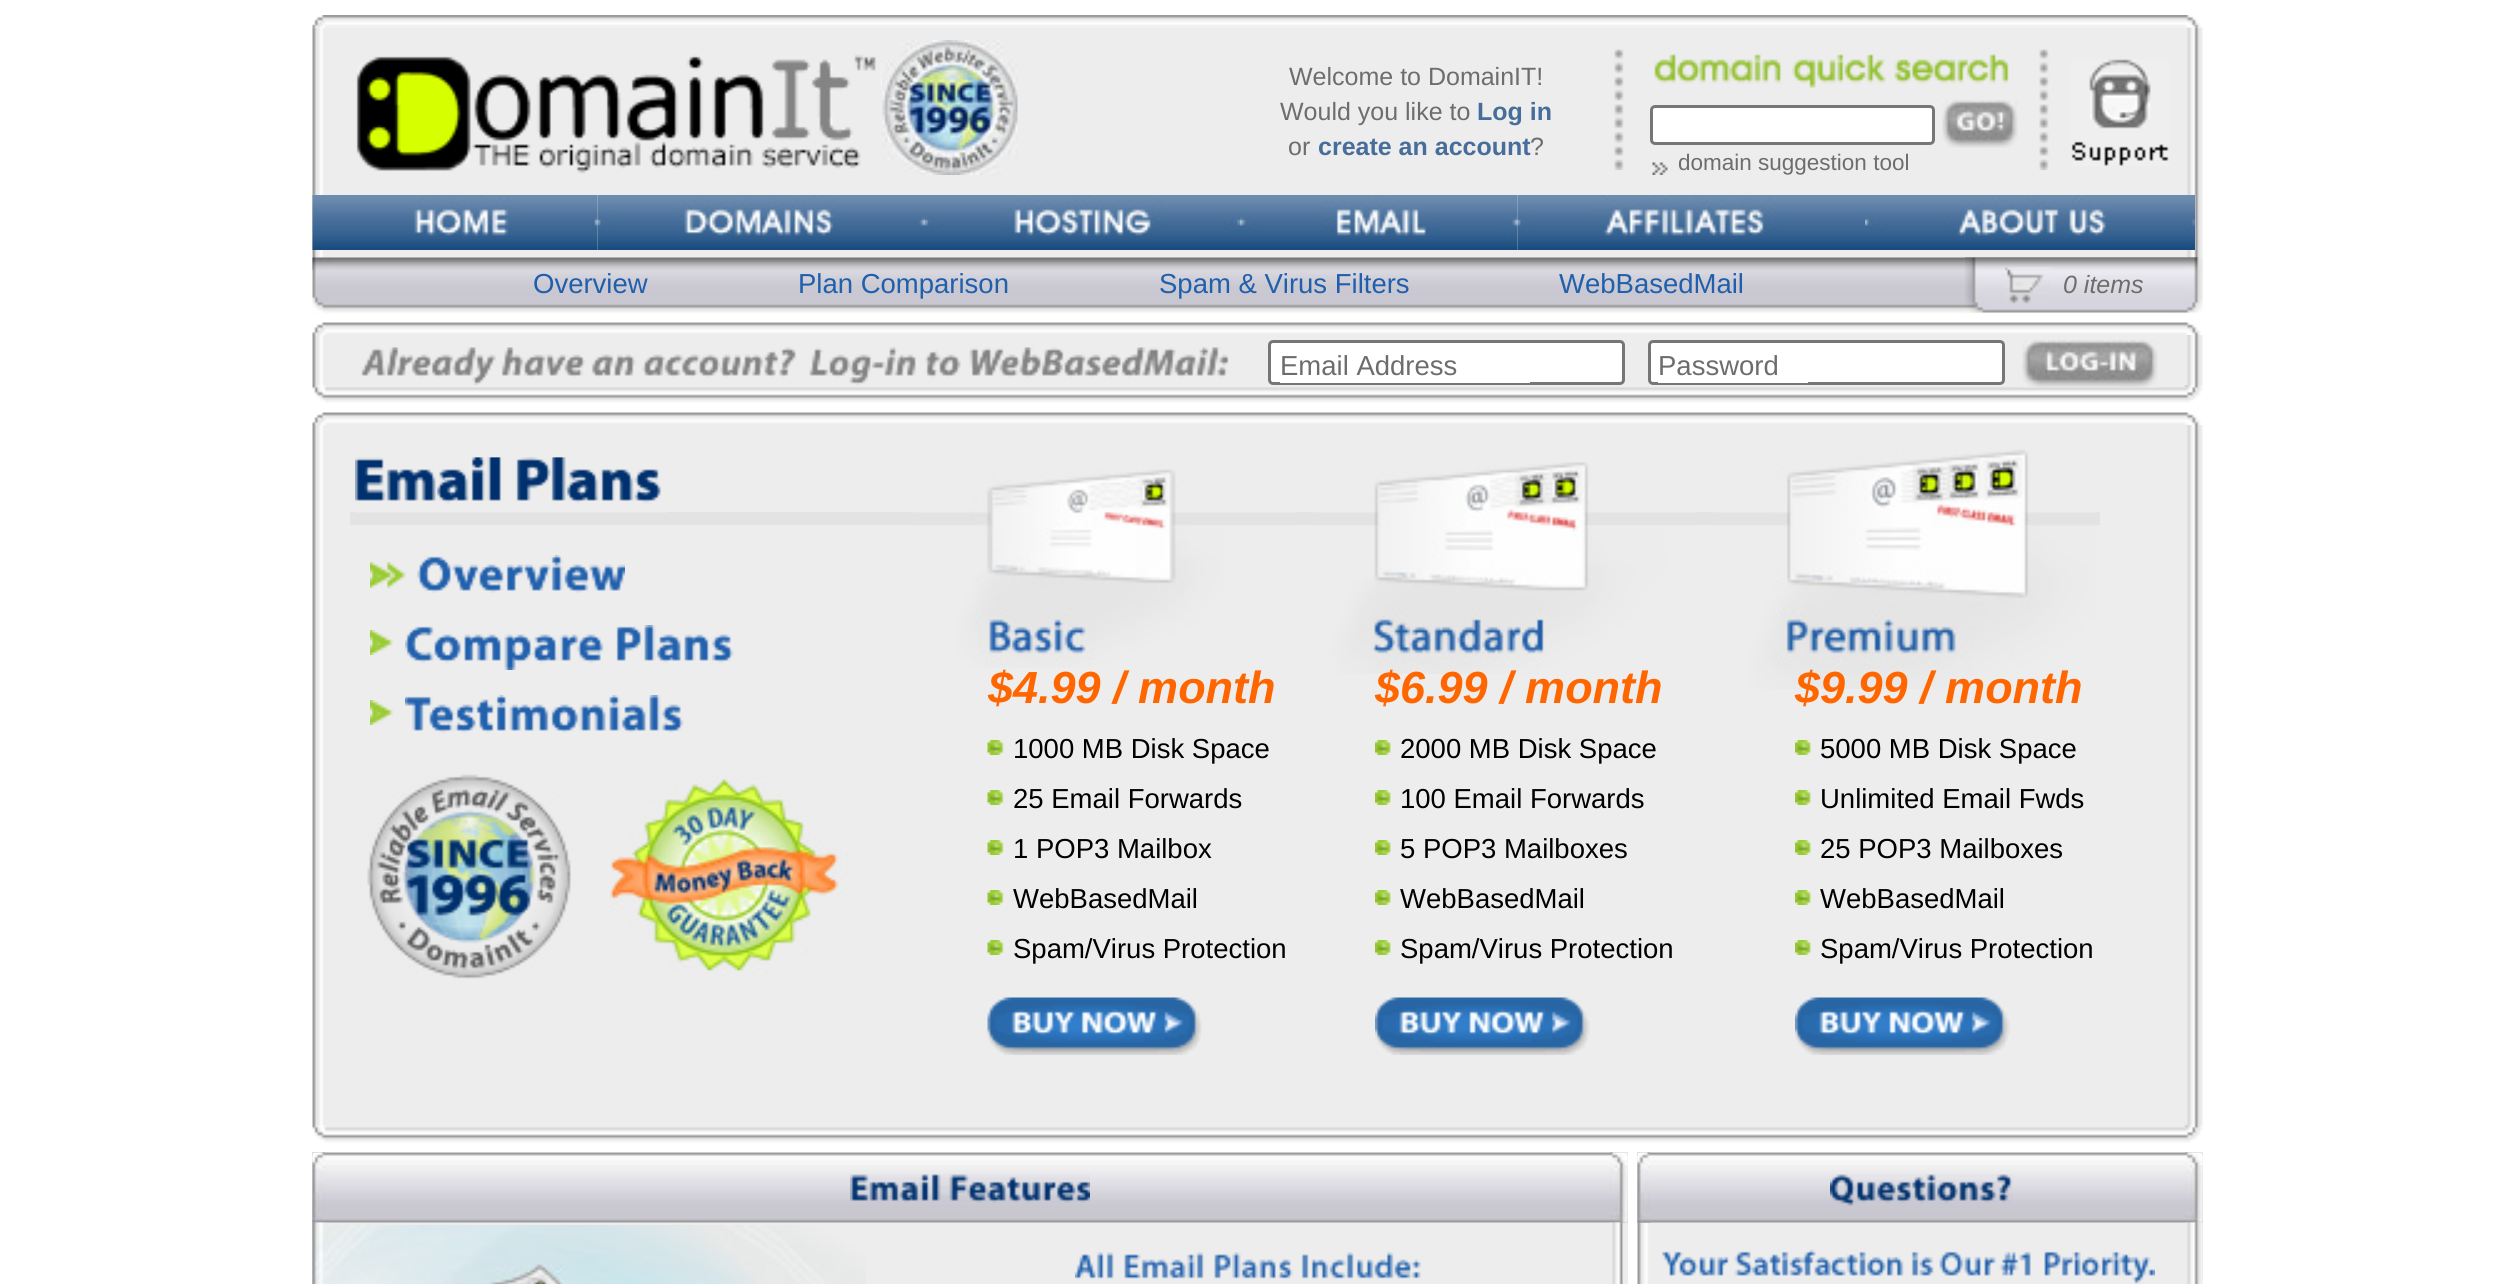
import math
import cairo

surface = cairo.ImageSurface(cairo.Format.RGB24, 2513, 1284)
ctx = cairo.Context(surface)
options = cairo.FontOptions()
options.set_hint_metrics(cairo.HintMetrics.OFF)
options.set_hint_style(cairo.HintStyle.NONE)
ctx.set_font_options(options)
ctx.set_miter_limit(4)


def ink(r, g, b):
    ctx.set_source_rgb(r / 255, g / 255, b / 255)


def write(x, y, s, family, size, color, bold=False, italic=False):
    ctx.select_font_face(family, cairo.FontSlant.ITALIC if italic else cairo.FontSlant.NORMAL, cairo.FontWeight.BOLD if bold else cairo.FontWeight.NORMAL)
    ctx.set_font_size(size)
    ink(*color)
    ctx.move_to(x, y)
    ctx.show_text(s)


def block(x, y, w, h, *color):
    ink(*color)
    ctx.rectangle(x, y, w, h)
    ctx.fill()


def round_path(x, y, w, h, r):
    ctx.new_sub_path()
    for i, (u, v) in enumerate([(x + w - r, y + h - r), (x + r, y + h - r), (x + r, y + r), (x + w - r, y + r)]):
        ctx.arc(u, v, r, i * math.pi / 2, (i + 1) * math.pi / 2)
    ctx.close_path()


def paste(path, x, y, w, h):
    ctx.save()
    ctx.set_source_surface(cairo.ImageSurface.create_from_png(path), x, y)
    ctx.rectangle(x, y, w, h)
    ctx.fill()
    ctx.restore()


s1 = dict(family="Liberation Sans", size=25, color=(109, 109, 109))
s2 = dict(family="Liberation Sans", size=25, color=(71, 109, 154), bold=True)
s3 = dict(family="Liberation Sans", size=22.5, color=(109, 109, 109))
s4 = dict(family="Liberation Sans", size=27.5, color=(32, 95, 172))
s5 = dict(family="Liberation Sans", size=25, color=(109, 109, 109), italic=True)
s6 = dict(family="Liberation Sans", size=27.5, color=(109, 109, 109))
s7 = dict(family="Liberation Sans", size=45, color=(255, 102, 0), bold=True, italic=True)
s8 = dict(family="Liberation Sans", size=27.5, color=(0, 0, 0))

ink(255, 255, 255)
ctx.paint()
paste("pic1.png", 312, 15, 1889, 13)
paste("pic2.png", 312, 27, 1891, 243)
paste("pic3.png", 356, 54, 526, 120)
paste("pic4.png", 882, 40, 136, 135)
write(1289, 85, "Welcome to DomainIT!", **s1)
write(1280, 120, "Would you like to", **s1)
write(1477, 120, "Log in", **s2)
write(1288, 155, "or", **s1)
write(1318, 155, "create an account", **s2)
write(1530, 155, "?", **s1)
paste("pic5.png", 2039, 49, 10, 121)
paste("pic6.png", 2071, 59, 98, 107)
paste("pic7.png", 1614, 49, 10, 121)
paste("pic8.png", 1654, 54, 355, 34)
ink(255, 255, 255)
round_path(1651.5, 106.5, 282, 37, 3.5)
ctx.fill_preserve()
ink(118, 118, 118)
ctx.set_line_width(3)
ctx.stroke()
paste("pic9.png", 1942, 100, 76, 48)
paste("pic10.png", 1652, 162, 16, 13)
write(1678, 170, "domain suggestion tool", **s3)
paste("pic11.png", 312, 195, 286, 55)
paste("pic12.png", 597, 195, 328, 55)
paste("pic13.png", 925, 195, 315, 55)
paste("pic14.png", 1240, 195, 278, 55)
paste("pic15.png", 1517, 195, 348, 55)
paste("pic16.png", 1865, 195, 330, 55)
paste("pic17.png", 312, 257, 1891, 58)
write(533, 293, "Overview", **s4)
write(798, 293, "Plan Comparison", **s4)
write(1159, 293, "Spam & Virus Filters", **s4)
write(1559, 293, "WebBasedMail", **s4)
paste("pic18.png", 1965, 257, 238, 56)
paste("pic19.png", 2005, 267, 45, 37)
write(2063, 293, "0 items", **s5)
paste("pic20.png", 312, 322, 1889, 13)
paste("pic21.png", 312, 335, 1891, 50)
paste("pic22.png", 360, 347, 869, 38)
ink(255, 255, 255)
round_path(1269.5, 341.5, 354, 42, 3.5)
ctx.fill_preserve()
ink(118, 118, 118)
ctx.stroke()
ink(255, 255, 255)
round_path(1649.5, 341.5, 354, 42, 3.5)
ctx.fill_preserve()
ink(118, 118, 118)
ctx.stroke()
paste("pic24.png", 312, 385, 1891, 18)
paste("pic23.png", 2022, 340, 136, 48)
block(1280, 382, 250, 1, 255, 255, 255)
write(1280, 375, "Email Address", **s6)
block(1658, 382, 150, 1, 255, 255, 255)
write(1658, 375, "Password", **s6)
paste("pic20.png", 312, 412, 1889, 13)
paste("pic25.png", 312, 425, 1891, 700)
block(350, 512, 1750, 13, 227, 227, 227)
paste("pic26.png", 355, 457, 312, 56)
paste("pic27.png", 357, 457, 234, 34)
paste("pic28.png", 913, 469, 384, 199)
paste("pic29.png", 1313, 462, 384, 212)
paste("pic30.png", 1713, 449, 384, 240)
paste("pic31.png", 370, 555, 255, 38)
paste("pic32.png", 417, 570, 1, 8)
paste("pic33.png", 370, 625, 364, 45)
paste("pic34.png", 370, 695, 314, 38)
paste("pic35.png", 367, 774, 204, 205)
paste("pic36.png", 610, 775, 238, 200)
write(988, 703, "$4.99 / month", **s7)
paste("pic37.png", 987, 740, 17, 15)
write(1013, 758, "1000 MB Disk Space", **s8)
paste("pic37.png", 987, 790, 17, 15)
write(1013, 808, "25 Email Forwards", **s8)
paste("pic37.png", 987, 840, 17, 15)
write(1013, 858, "1 POP3 Mailbox", **s8)
paste("pic37.png", 987, 890, 17, 15)
write(1013, 908, "WebBasedMail", **s8)
paste("pic37.png", 987, 940, 17, 15)
write(1013, 958, "Spam/Virus Protection", **s8)
paste("pic38.png", 987, 997, 215, 58)
write(1375, 703, "$6.99 / month", **s7)
paste("pic39.png", 1375, 740, 16, 15)
write(1400, 758, "2000 MB Disk Space", **s8)
paste("pic39.png", 1375, 790, 16, 15)
write(1400, 808, "100 Email Forwards", **s8)
paste("pic39.png", 1375, 840, 16, 15)
write(1400, 858, "5 POP3 Mailboxes", **s8)
paste("pic39.png", 1375, 890, 16, 15)
write(1400, 908, "WebBasedMail", **s8)
paste("pic39.png", 1375, 940, 16, 15)
write(1400, 958, "Spam/Virus Protection", **s8)
paste("pic40.png", 1375, 997, 215, 58)
write(1795, 703, "$9.99 / month", **s7)
paste("pic41.png", 1795, 740, 16, 15)
write(1820, 758, "5000 MB Disk Space", **s8)
paste("pic41.png", 1795, 790, 16, 15)
write(1820, 808, "Unlimited Email Fwds", **s8)
paste("pic41.png", 1795, 840, 16, 15)
write(1820, 858, "25 POP3 Mailboxes", **s8)
paste("pic41.png", 1795, 890, 16, 15)
write(1820, 908, "WebBasedMail", **s8)
paste("pic41.png", 1795, 940, 16, 15)
write(1820, 958, "Spam/Virus Protection", **s8)
paste("pic42.png", 1795, 997, 215, 58)
paste("pic24.png", 312, 1125, 1891, 18)
block(325, 1153, 1303, 131, 237, 237, 237)
paste("pic43.png", 312, 1152, 13, 132)
paste("pic44.png", 312, 1152, 1316, 71)
paste("pic45.png", 312, 1152, 13, 71)
paste("pic46.png", 1610, 1152, 18, 71)
paste("pic47.png", 850, 1174, 240, 29)
paste("pic48.png", 312, 1222, 13, 62)
paste("pic49.png", 325, 1225, 541, 59)
paste("pic50.png", 1075, 1252, 346, 27)
paste("pic51.png", 1610, 1222, 13, 62)
block(1650, 1153, 553, 131, 237, 237, 237)
paste("pic52.png", 1637, 1152, 13, 132)
paste("pic53.png", 1637, 1152, 566, 71)
paste("pic54.png", 1637, 1152, 13, 71)
paste("pic46.png", 2185, 1152, 18, 71)
paste("pic55.png", 1830, 1174, 183, 32)
paste("pic56.png", 2185, 1222, 18, 62)
paste("pic57.png", 1662, 1249, 493, 35)
surface.write_to_png("screenshot.png")
